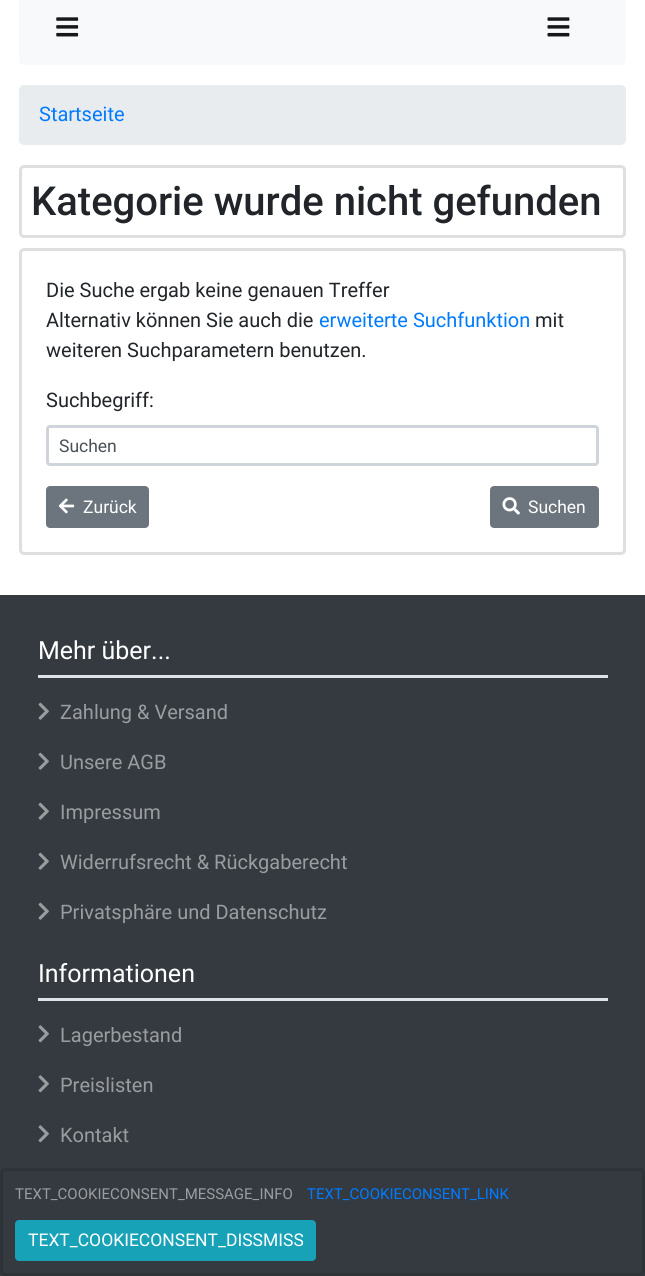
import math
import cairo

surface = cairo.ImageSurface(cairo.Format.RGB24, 645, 1276)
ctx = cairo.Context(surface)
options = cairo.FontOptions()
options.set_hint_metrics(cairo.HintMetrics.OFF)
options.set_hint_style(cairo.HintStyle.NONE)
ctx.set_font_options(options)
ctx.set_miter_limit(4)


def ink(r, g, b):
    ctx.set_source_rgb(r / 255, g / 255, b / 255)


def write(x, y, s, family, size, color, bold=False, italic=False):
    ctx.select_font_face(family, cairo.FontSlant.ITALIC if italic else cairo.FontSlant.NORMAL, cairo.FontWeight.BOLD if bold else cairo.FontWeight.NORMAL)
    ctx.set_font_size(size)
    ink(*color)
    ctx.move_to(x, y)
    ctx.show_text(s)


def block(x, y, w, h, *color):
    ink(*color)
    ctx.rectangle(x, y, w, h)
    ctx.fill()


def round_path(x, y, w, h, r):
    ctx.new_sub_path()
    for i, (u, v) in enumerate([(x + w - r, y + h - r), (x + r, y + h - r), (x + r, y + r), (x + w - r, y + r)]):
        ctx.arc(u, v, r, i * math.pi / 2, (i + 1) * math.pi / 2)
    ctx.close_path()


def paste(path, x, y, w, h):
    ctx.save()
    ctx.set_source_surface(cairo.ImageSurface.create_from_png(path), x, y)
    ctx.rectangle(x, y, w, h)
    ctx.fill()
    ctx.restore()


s1 = dict(family="Roboto", size=20, color=(0, 123, 255))
s2 = dict(family="Roboto Medium", size=40, color=(33, 37, 41))
s3 = dict(family="Roboto", size=20, color=(33, 37, 41))
s4 = dict(family="Roboto", size=17.5, color=(73, 80, 87))
s5 = dict(family="Roboto", size=17.5, color=(255, 255, 255))
s6 = dict(family="Roboto", size=25, color=(255, 255, 255))
s7 = dict(family="Roboto", size=20, color=(154, 157, 160))
s8 = dict(family="Roboto", size=15, color=(154, 157, 160))
s9 = dict(family="Roboto", size=15, color=(0, 123, 255))

ink(255, 255, 255)
ctx.paint()
ink(248, 249, 250)
round_path(19, -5, 607, 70, 5)
ctx.fill()
paste("pic1.png", 56, 17, 23, 20)
paste("pic2.png", 547, 17, 23, 20)
ink(233, 236, 239)
round_path(19, 85, 607, 60, 5)
ctx.fill()
write(39, 121, "Startseite", **s1)
round_path(20.5, 166.5, 604, 70, 3.5)
ink(223, 223, 223)
ctx.set_line_width(3)
ctx.stroke()
write(31, 215, "Kategorie wurde nicht gefunden", **s2)
round_path(20.5, 249.5, 604, 304, 3.5)
ink(223, 223, 223)
ctx.stroke()
write(46, 297, "Die Suche ergab keine genauen Treffer", **s3)
write(46, 327, "Alternativ können Sie auch die", **s3)
write(319, 327, "erweiterte Suchfunktion", **s1)
write(535, 327, "mit", **s3)
write(46, 357, "weiteren Suchparametern benutzen.", **s3)
write(46, 407, "Suchbegriff:", **s3)
round_path(47.5, 426.5, 550, 38, 2.5)
ink(206, 212, 218)
ctx.stroke()
write(59, 452, "Suchen", **s4)
ink(108, 117, 125)
round_path(47.5, 487.5, 100, 39, 2.5)
ctx.fill_preserve()
ctx.stroke()
paste("pic3.png", 58, 498, 17, 16)
write(83, 513, "Zurück", **s5)
ink(108, 117, 125)
round_path(491.5, 487.5, 106, 39, 2.5)
ctx.fill_preserve()
ctx.stroke()
paste("pic4.png", 502, 497, 18, 18)
write(528, 513, "Suchen", **s5)
block(0, 595, 645, 681, 52, 58, 64)
block(38, 675, 570, 3, 222, 226, 230)
write(38, 659, "Mehr über...", **s6)
paste("pic5.png", 38, 702, 11, 18)
write(60, 719, "Zahlung & Versand", **s7)
paste("pic5.png", 38, 752, 11, 18)
write(60, 769, "Unsere AGB", **s7)
paste("pic5.png", 38, 802, 11, 18)
write(60, 819, "Impressum", **s7)
paste("pic5.png", 38, 852, 11, 18)
write(60, 869, "Widerrufsrecht & Rückgaberecht", **s7)
paste("pic5.png", 38, 902, 11, 18)
write(60, 919, "Privatsphäre und Datenschutz", **s7)
block(38, 998, 570, 3, 222, 226, 230)
write(38, 982, "Informationen", **s6)
paste("pic6.png", 38, 1025, 11, 18)
write(60, 1042, "Lagerbestand", **s7)
paste("pic6.png", 38, 1075, 11, 18)
write(60, 1092, "Preislisten", **s7)
paste("pic6.png", 38, 1125, 11, 18)
write(60, 1142, "Kontakt", **s7)
round_path(1.5, 1169.5, 642, 105, 3.5)
ink(46, 51, 56)
ctx.stroke()
write(15, 1199, "TEXT_COOKIECONSENT_MESSAGE_INFO", **s8)
write(307, 1199, "TEXT_COOKIECONSENT_LINK", **s9)
ink(23, 162, 184)
round_path(16.5, 1221.5, 298, 38, 2.5)
ctx.fill_preserve()
ctx.stroke()
write(28, 1246, "TEXT_COOKIECONSENT_DISSMISS", **s5)
surface.write_to_png("screenshot.png")
